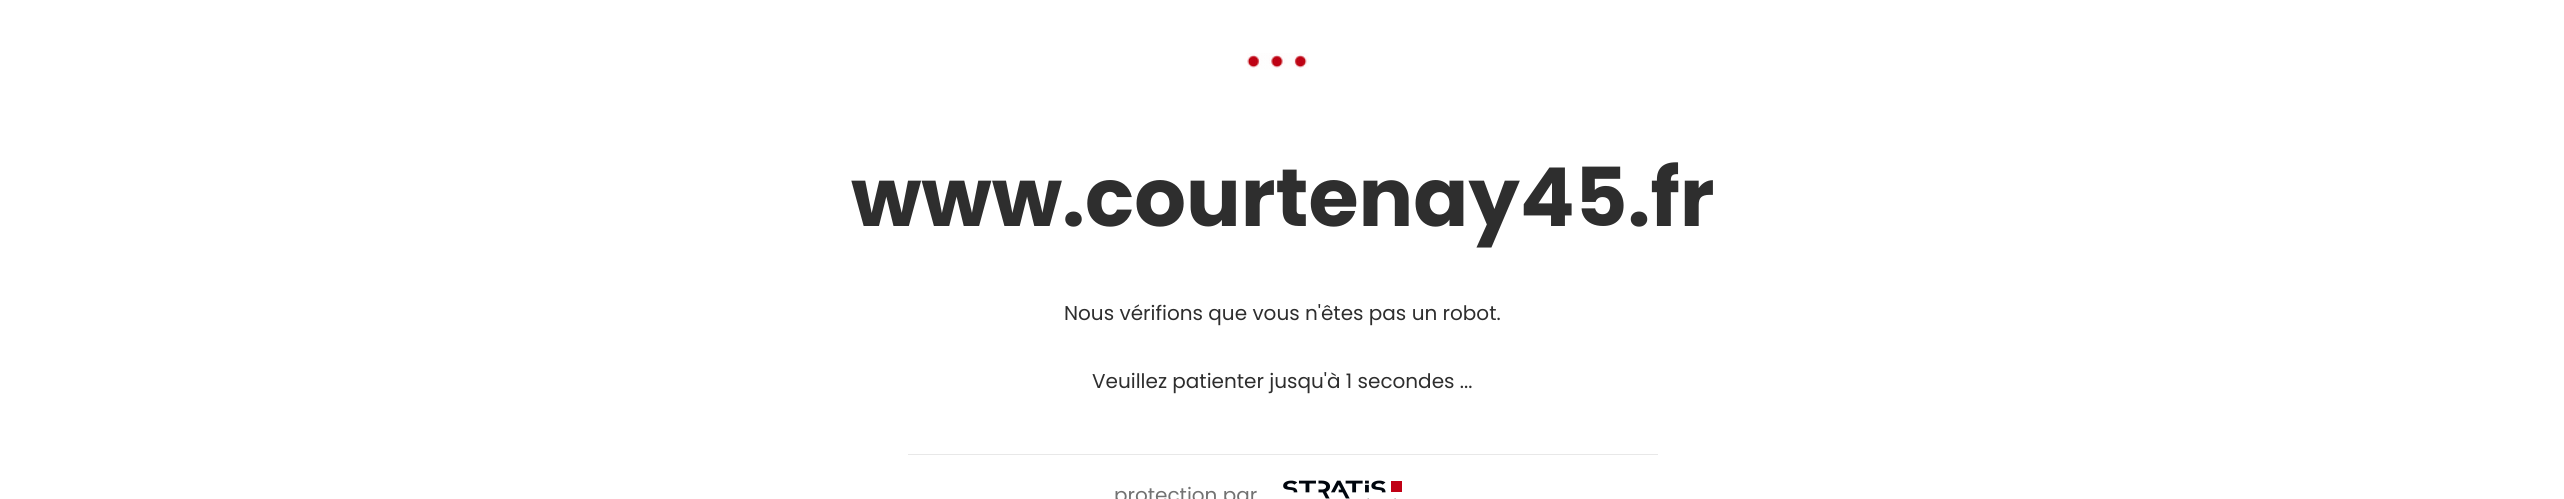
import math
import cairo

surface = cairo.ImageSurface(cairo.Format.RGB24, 2564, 499)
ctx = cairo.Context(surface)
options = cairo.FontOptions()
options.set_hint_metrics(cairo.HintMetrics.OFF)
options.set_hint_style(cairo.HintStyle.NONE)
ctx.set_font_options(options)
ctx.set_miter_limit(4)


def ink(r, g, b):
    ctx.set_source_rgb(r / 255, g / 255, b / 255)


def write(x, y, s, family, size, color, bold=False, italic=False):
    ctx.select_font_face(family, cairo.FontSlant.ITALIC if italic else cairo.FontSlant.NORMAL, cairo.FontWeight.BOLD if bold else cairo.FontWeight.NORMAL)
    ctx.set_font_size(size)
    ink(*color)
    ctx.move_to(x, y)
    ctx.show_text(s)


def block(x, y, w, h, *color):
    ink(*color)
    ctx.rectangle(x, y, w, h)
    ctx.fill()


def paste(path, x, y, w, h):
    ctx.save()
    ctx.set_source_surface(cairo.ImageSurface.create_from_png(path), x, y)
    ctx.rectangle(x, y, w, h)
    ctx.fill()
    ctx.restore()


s1 = dict(family="Poppins", size=81.25, color=(46, 46, 46), bold=True)
s2 = dict(family="Poppins", size=20, color=(46, 46, 46))
s3 = dict(family="Poppins", size=20, color=(114, 114, 114))

ink(255, 255, 255)
ctx.paint()
paste("pic1.png", 1247, 53, 62, 17)
write(851, 226, "www.courtenay45.fr", **s1)
write(1064, 320, "Nous vérifions que vous n'êtes pas un robot.", **s2)
write(1092, 388, "Veuillez patienter jusqu'à 1 secondes ...", **s2)
block(908, 454, 750, 1, 232, 232, 232)
write(1114, 502, "protection par", **s3)
paste("pic2.png", 1283, 480, 119, 19)
surface.write_to_png("screenshot.png")
